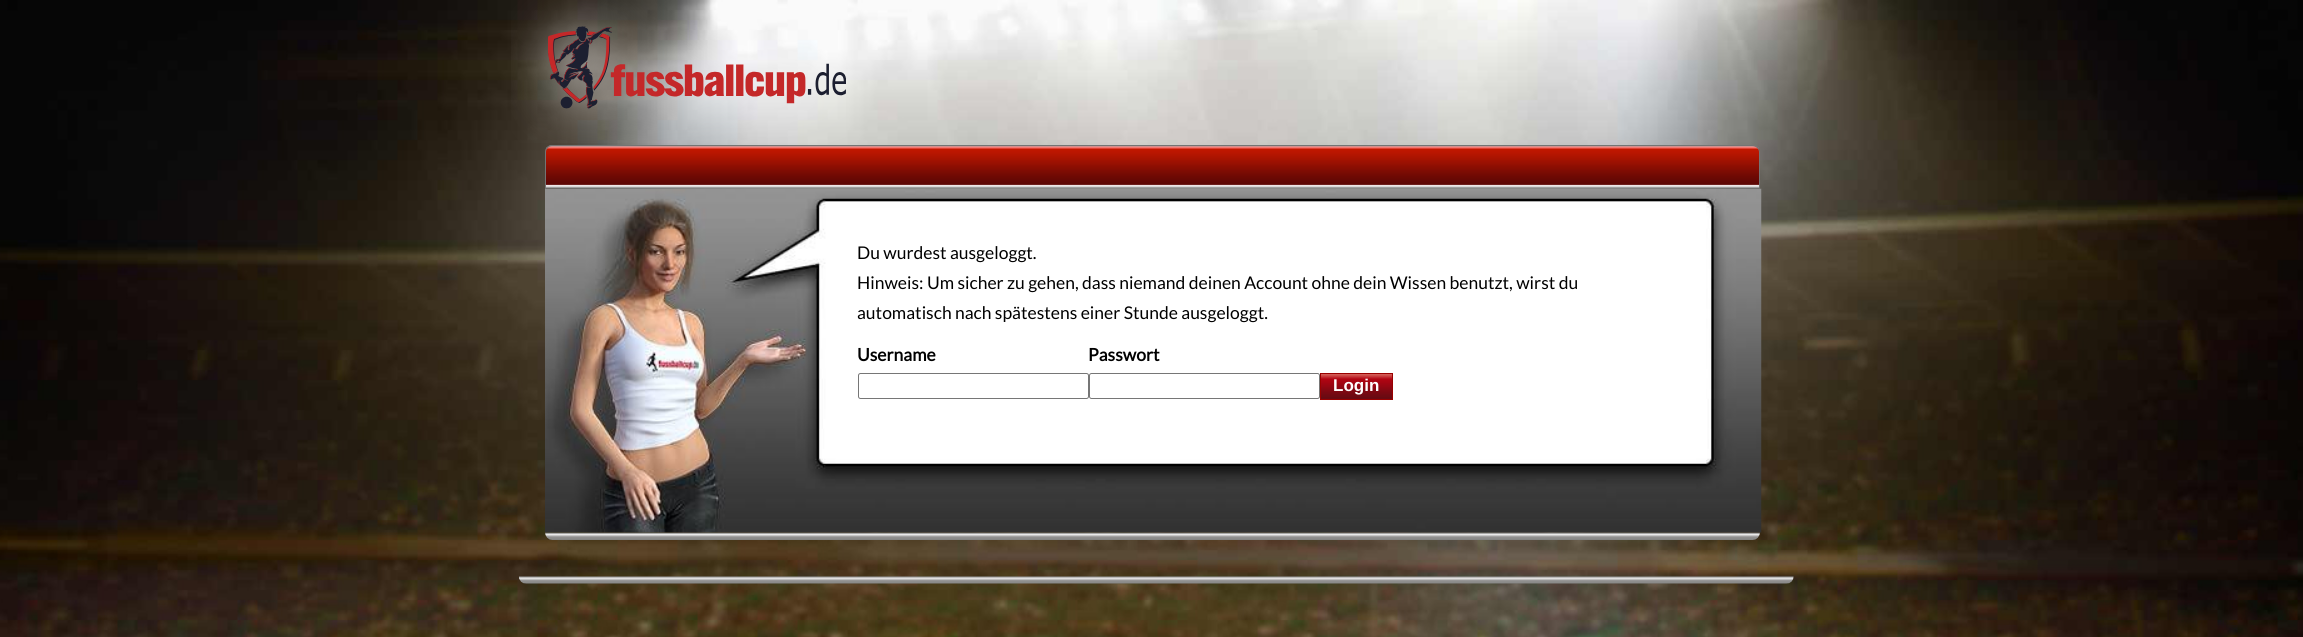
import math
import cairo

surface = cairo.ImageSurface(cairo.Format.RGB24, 2303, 637)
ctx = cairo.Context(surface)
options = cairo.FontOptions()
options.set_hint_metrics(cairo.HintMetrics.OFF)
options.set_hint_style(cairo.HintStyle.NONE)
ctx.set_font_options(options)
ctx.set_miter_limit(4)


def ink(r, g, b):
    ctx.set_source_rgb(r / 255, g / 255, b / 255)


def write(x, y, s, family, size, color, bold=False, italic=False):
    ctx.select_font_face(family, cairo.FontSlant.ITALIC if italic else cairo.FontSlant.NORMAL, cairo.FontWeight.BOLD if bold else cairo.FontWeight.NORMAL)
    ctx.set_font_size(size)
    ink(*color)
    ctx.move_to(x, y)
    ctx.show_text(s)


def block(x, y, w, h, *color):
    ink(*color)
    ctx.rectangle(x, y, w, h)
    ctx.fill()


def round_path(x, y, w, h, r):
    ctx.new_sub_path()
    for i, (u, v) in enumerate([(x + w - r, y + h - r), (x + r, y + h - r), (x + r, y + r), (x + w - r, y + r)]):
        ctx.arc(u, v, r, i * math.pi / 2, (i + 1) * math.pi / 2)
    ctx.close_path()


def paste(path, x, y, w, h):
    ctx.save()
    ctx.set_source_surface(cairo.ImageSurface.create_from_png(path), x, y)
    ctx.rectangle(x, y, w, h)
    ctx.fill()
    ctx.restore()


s1 = dict(family="Lato", size=17.5, color=(0, 0, 0))
s2 = dict(family="Lato", size=17.5, color=(0, 0, 0), bold=True)
s3 = dict(family="Liberation Sans", size=17, color=(255, 255, 255), bold=True)

ink(255, 255, 255)
ctx.paint()
paste("pic1.png", 0, 0, 2303, 637)
paste("pic2.png", 511, 0, 335, 143)
paste("pic3.png", 545, 188, 1217, 345)
paste("pic4.png", 545, 145, 1215, 44)
ink(116, 116, 116)
ctx.set_fill_rule(cairo.FillRule.EVEN_ODD)
ctx.new_path()
ctx.move_to(552, 145)
ctx.line_to(1752, 145)
ctx.curve_to(1757, 145, 1760, 148, 1760, 152)
ctx.line_to(1760, 189)
ctx.line_to(545, 189)
ctx.line_to(545, 152)
ctx.curve_to(545, 148, 548, 145, 552, 145)
ctx.close_path()
ctx.move_to(552, 146)
ctx.line_to(1752, 146)
ctx.curve_to(1756, 146, 1759, 149, 1759, 152)
ctx.line_to(1759, 189)
ctx.line_to(546, 189)
ctx.line_to(546, 152)
ctx.curve_to(546, 149, 549, 146, 552, 146)
ctx.close_path()
ctx.fill()
write(857, 259, "Du wurdest ausgeloggt.", **s1)
write(857, 289, "Hinweis: Um sicher zu gehen, dass niemand deinen Account ohne dein Wissen benutzt, wirst du", **s1)
write(857, 319, "automatisch nach spätestens einer Stunde ausgeloggt.", **s1)
write(857, 361, "Username", **s2)
round_path(858.5, 373.5, 230, 25, 2)
ink(118, 118, 118)
ctx.set_line_width(1)
ctx.stroke()
write(1088, 361, "Passwort", **s2)
round_path(1089.5, 373.5, 230, 25, 2)
ink(118, 118, 118)
ctx.stroke()
block(1321, 397, 71, 2, 104, 10, 18)
paste("pic5.png", 1321, 374, 71, 23)
ctx.rectangle(1320.5, 373.5, 72, 26)
ink(153, 0, 0)
ctx.stroke()
write(1333, 391, "Login", **s3)
paste("pic6.png", 545, 532, 1215, 8)
paste("pic7.png", 519, 576, 1275, 8)
surface.write_to_png("screenshot.png")
